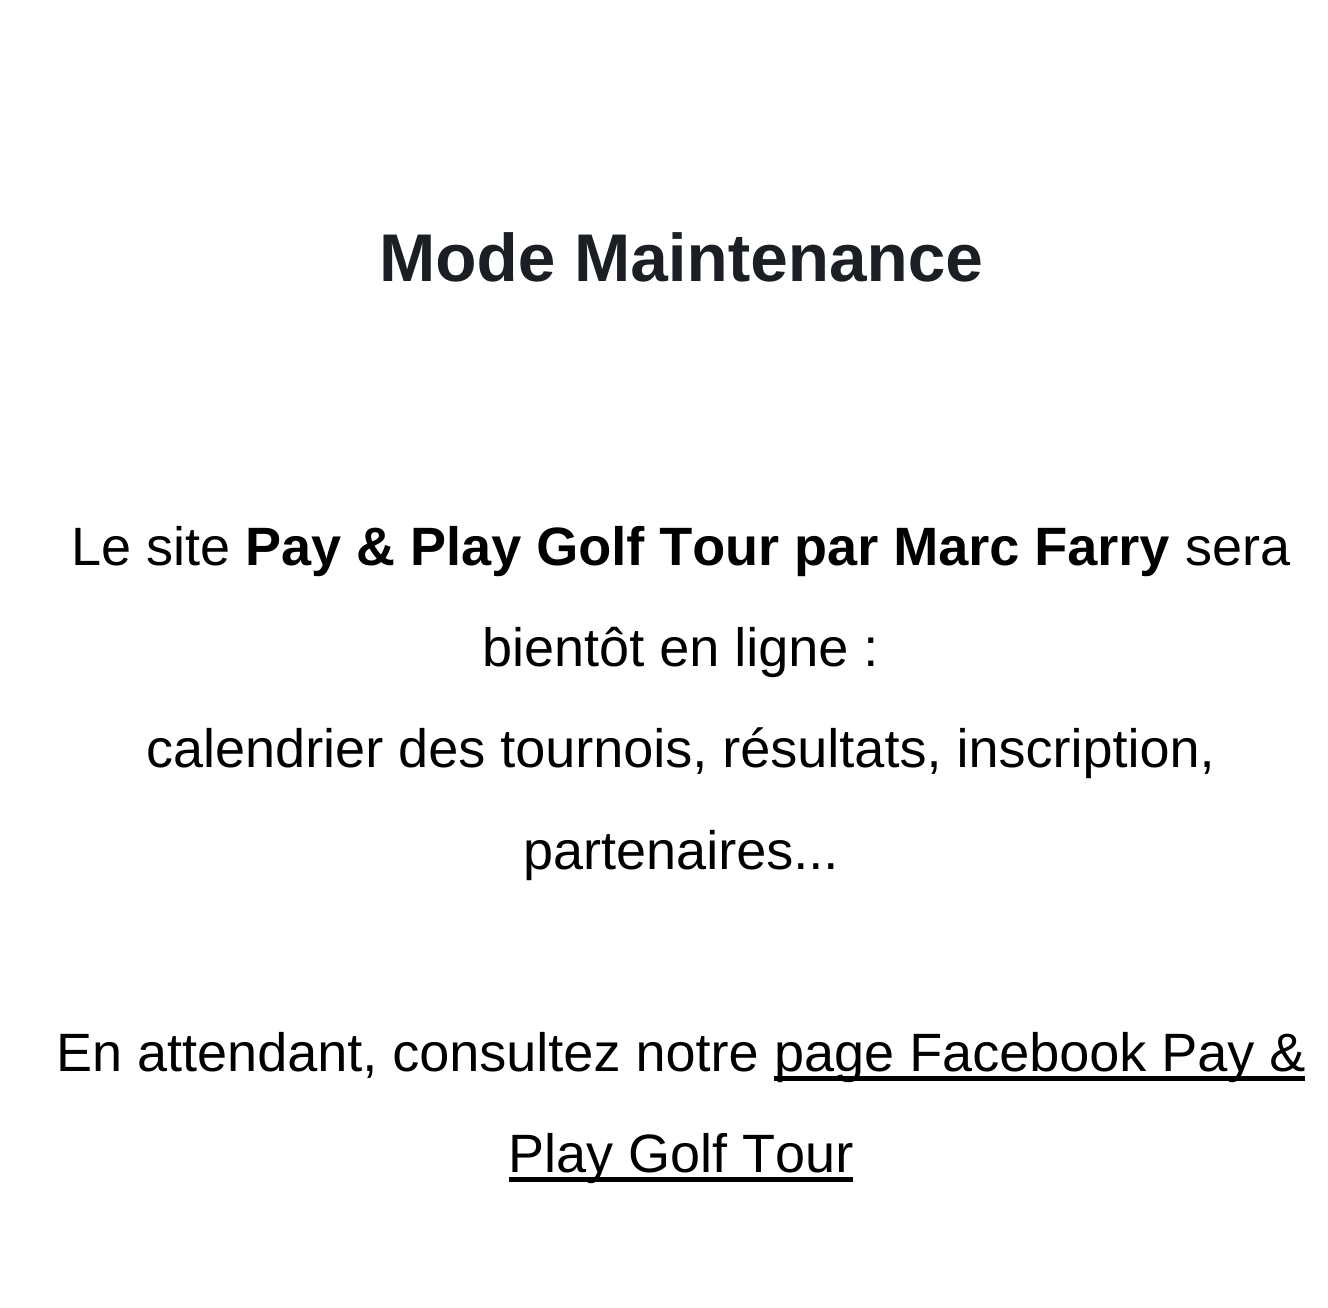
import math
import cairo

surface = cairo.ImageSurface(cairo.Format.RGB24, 1328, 1308)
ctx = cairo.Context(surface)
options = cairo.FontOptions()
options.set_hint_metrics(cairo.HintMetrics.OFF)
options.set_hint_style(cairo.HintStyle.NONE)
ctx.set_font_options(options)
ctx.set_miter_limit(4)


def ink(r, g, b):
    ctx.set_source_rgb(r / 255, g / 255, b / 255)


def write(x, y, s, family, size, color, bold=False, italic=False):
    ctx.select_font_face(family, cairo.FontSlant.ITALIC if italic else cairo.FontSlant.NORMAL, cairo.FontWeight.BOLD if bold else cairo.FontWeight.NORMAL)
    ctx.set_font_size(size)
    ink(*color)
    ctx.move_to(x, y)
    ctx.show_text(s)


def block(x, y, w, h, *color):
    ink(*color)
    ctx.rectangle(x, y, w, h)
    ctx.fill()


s1 = dict(family="Liberation Sans", size=67.5, color=(27, 31, 35), bold=True)
s2 = dict(family="Liberation Sans", size=54, color=(0, 0, 0))
s3 = dict(family="Liberation Sans", size=54, color=(0, 0, 0), bold=True)

ink(255, 255, 255)
ctx.paint()
write(379, 281, "Mode Maintenance", **s1)
write(71, 565, "Le site", **s2)
write(245, 565, "Pay & Play Golf Tour par Marc Farry", **s3)
write(1185, 565, "sera", **s2)
write(482, 666, "bientôt en ligne :", **s2)
write(146, 767, "calendrier des tournois, résultats, inscription,", **s2)
write(523, 869, "partenaires...", **s2)
write(56, 1071, "En attendant, consultez notre", **s2)
block(774, 1076, 531, 5, 0, 0, 0)
write(774, 1071, "page Facebook Pay &", **s2)
block(509, 1177, 344, 5, 0, 0, 0)
write(508, 1172, "Play Golf Tour", **s2)
surface.write_to_png("screenshot.png")
